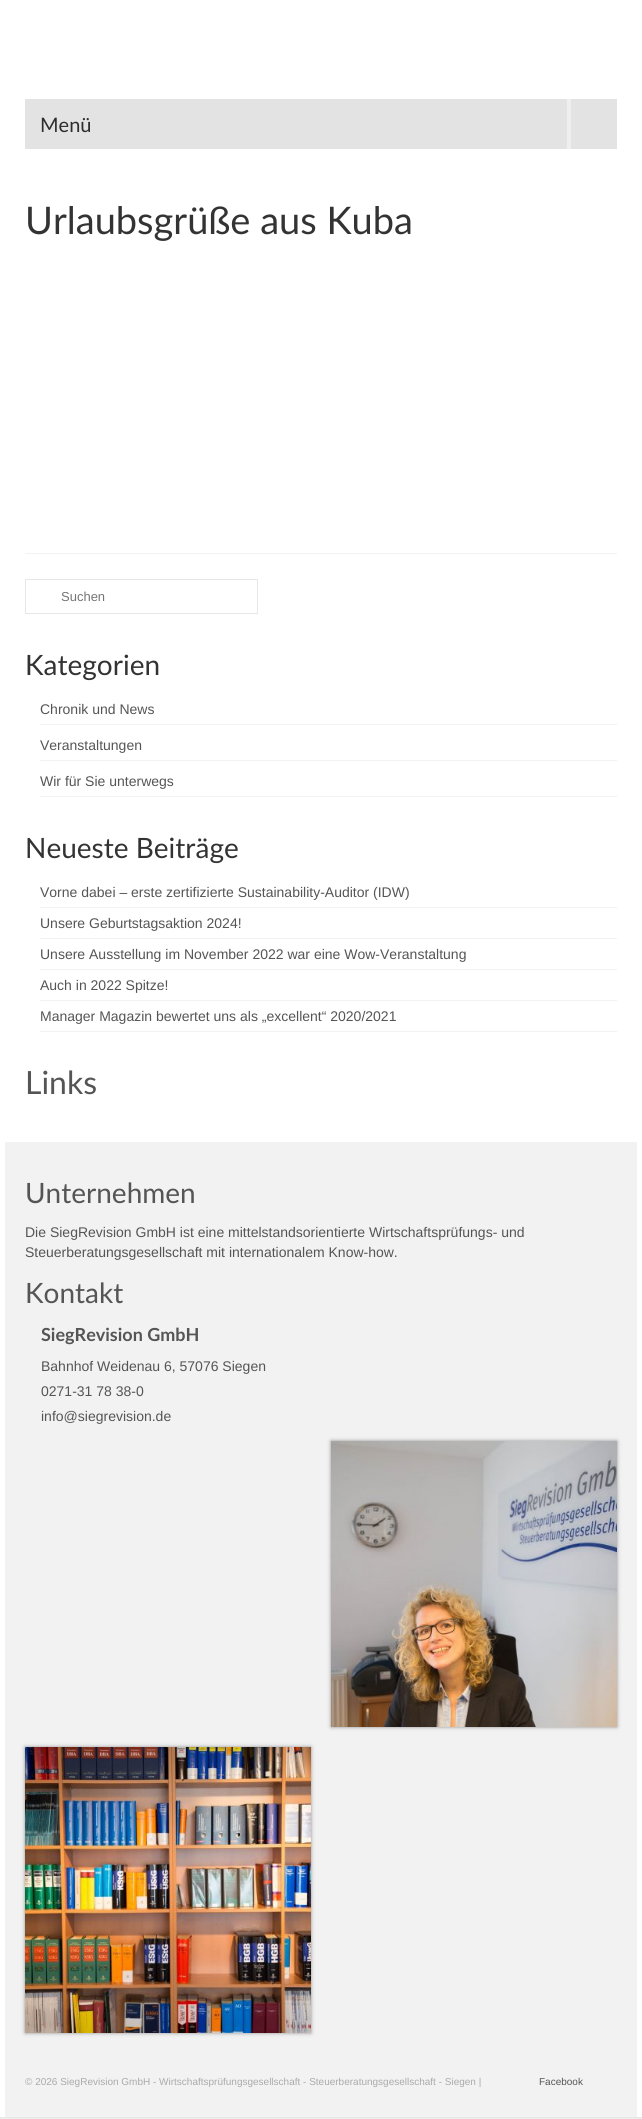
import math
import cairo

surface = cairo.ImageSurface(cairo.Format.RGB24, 642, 2119)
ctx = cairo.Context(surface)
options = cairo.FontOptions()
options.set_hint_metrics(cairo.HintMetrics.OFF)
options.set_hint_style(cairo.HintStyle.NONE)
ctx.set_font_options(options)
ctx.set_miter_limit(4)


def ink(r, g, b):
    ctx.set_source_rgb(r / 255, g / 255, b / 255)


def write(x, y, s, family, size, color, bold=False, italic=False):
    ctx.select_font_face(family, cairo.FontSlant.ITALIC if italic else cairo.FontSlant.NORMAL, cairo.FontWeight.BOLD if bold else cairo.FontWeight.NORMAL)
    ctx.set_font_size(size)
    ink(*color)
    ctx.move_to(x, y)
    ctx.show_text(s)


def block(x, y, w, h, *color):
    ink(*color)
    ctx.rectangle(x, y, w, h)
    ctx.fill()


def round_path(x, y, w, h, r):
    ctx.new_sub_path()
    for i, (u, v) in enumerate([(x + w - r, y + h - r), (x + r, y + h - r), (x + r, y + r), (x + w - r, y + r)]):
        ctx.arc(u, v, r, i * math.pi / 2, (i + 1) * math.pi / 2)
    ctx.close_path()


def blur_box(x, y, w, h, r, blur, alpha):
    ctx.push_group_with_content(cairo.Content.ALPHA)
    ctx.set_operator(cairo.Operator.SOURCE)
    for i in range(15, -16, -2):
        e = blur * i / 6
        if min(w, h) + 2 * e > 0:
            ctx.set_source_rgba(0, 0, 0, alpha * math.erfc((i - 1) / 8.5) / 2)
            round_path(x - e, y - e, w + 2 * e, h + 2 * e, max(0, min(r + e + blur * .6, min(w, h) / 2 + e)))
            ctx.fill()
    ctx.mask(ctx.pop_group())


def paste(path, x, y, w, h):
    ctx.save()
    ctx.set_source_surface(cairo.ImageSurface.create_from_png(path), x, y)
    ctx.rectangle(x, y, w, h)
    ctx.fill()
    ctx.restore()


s1 = dict(family="Lato", size=20, color=(45, 45, 45))
s2 = dict(family="Lato", size=38, color=(51, 51, 51))
s3 = dict(family="Liberation Sans", size=13, color=(117, 117, 117))
s4 = dict(family="Lato", size=28, color=(51, 51, 51))
s5 = dict(family="Liberation Sans", size=14, color=(85, 85, 85))
s6 = dict(family="Lato", size=32, color=(85, 85, 85))
s7 = dict(family="Lato", size=28, color=(85, 85, 85))
s8 = dict(family="Lato", size=18, color=(85, 85, 85), bold=True)
s9 = dict(family="Liberation Sans", size=10, color=(170, 170, 170))
s10 = dict(family="Liberation Sans", size=10, color=(85, 85, 85))

ink(255, 255, 255)
ctx.paint()
ctx.save()
ctx.rectangle(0, 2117, 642, 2)
ctx.clip()
ink(0, 0, 0)
blur_box(-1, -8, 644, 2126, 0, 2.5, 0.16)
ctx.restore()
block(567, 99, 4, 50, 239, 239, 239)
block(25, 99, 542, 50, 227, 227, 227)
write(40, 132, "Menü", **s1)
block(571, 99, 46, 50, 227, 227, 227)
write(25, 234, "Urlaubsgrüße aus Kuba", **s2)
block(25, 553, 592, 1, 242, 242, 242)
ctx.rectangle(25.5, 579.5, 232, 34)
ink(231, 231, 231)
ctx.set_line_width(1)
ctx.stroke()
write(61, 601, "Suchen", **s3)
write(25, 675, "Kategorien", **s4)
block(40, 724, 577, 1, 242, 242, 242)
write(40, 714, "Chronik und News", **s5)
block(40, 760, 577, 1, 242, 242, 242)
write(40, 750, "Veranstaltungen", **s5)
block(40, 796, 577, 1, 242, 242, 242)
write(40, 786, "Wir für Sie unterwegs", **s5)
write(25, 858, "Neueste Beiträge", **s4)
block(40, 907, 577, 1, 242, 242, 242)
write(40, 897, "Vorne dabei – erste zertifizierte Sustainability-Auditor (IDW)", **s5)
block(40, 938, 577, 1, 242, 242, 242)
write(40, 928, "Unsere Geburtstagsaktion 2024!", **s5)
block(40, 969, 577, 1, 242, 242, 242)
write(40, 959, "Unsere Ausstellung im November 2022 war eine Wow-Veranstaltung", **s5)
block(40, 1000, 577, 1, 242, 242, 242)
write(40, 990, "Auch in 2022 Spitze!", **s5)
block(40, 1031, 577, 1, 242, 242, 242)
write(40, 1021, "Manager Magazin bewertet uns als „excellent“ 2020/2021", **s5)
write(25, 1094, "Links", **s6)
block(5, 1142, 632, 975, 242, 242, 242)
write(25, 1203, "Unternehmen", **s7)
write(25, 1237, "Die SiegRevision GmbH ist eine mittelstandsorientierte Wirtschaftsprüfungs- und", **s5)
write(25, 1257, "Steuerberatungsgesellschaft mit internationalem Know-how.", **s5)
write(25, 1303, "Kontakt", **s7)
write(41, 1341, "SiegRevision GmbH", **s8)
write(41, 1371, "Bahnhof Weidenau 6, 57076 Siegen", **s5)
write(41, 1396, "0271-31 78 38-0", **s5)
write(41, 1421, "info@siegrevision.de", **s5)
ink(0, 0, 0)
blur_box(331, 1441, 286, 286, 0, 2, 0.4)
paste("pic1.png", 331, 1441, 286, 286)
blur_box(25, 1747, 286, 286, 0, 2, 0.4)
paste("pic2.png", 25, 1747, 286, 286)
write(25, 2085, "© 2026 SiegRevision GmbH - Wirtschaftsprüfungsgesellschaft - Steuerberatungsgesellschaft - Siegen |", **s9)
write(539, 2085, "Facebook", **s10)
surface.write_to_png("screenshot.png")
